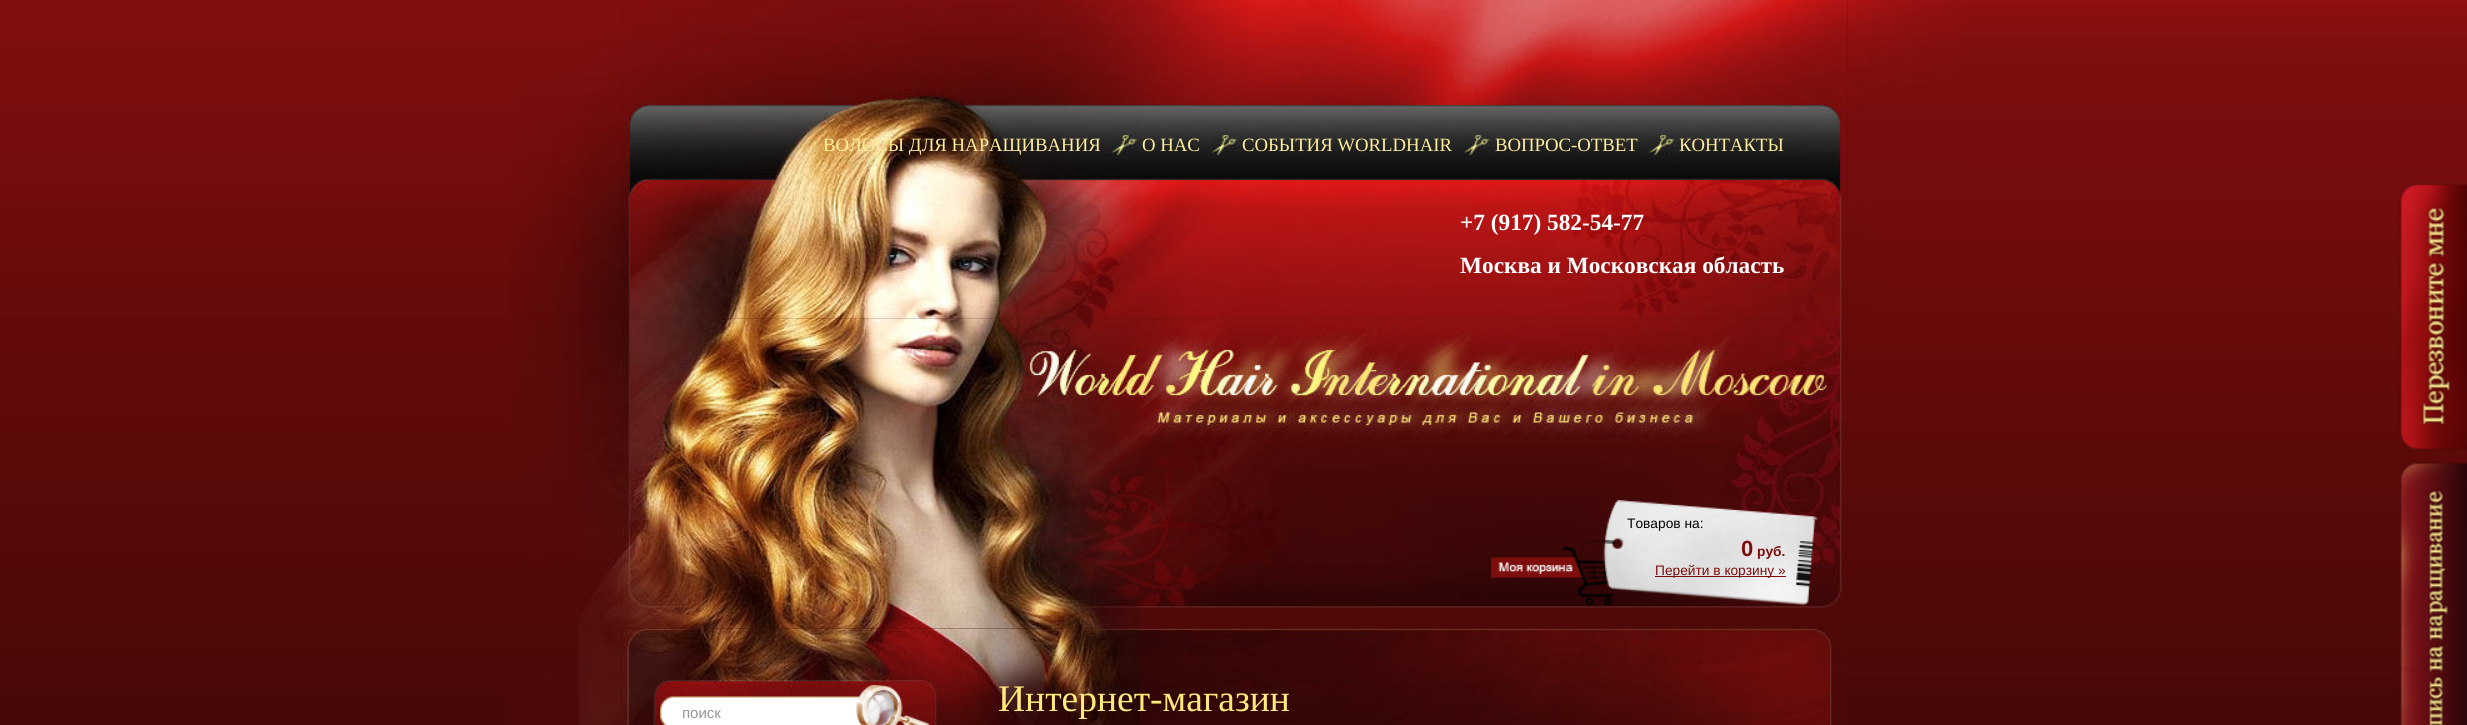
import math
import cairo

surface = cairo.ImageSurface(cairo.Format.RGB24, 2467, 725)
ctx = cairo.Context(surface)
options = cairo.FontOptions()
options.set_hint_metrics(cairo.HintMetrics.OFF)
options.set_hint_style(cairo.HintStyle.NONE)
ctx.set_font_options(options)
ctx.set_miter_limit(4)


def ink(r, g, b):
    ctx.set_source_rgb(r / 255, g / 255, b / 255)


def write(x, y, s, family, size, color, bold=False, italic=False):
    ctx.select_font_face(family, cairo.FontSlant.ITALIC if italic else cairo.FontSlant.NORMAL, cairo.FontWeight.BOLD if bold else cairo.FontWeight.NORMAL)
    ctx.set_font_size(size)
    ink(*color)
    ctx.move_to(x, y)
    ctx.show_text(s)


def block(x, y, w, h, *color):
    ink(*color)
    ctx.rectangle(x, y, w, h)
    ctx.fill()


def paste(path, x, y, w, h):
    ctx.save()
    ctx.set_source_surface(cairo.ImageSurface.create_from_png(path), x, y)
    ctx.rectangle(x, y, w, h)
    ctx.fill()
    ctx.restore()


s1 = dict(family="Liberation Serif", size=18.75, color=(255, 238, 155))
s2 = dict(family="Liberation Serif", size=23.3, color=(255, 255, 255), bold=True)
s3 = dict(family="Liberation Sans", size=13.75, color=(0, 0, 0))
s4 = dict(family="Liberation Sans", size=22, color=(126, 14, 13), bold=True)
s5 = dict(family="Liberation Sans", size=13.75, color=(126, 14, 13), bold=True)
s6 = dict(family="Liberation Sans", size=13.75, color=(126, 14, 13))
s7 = dict(family="Liberation Sans", size=15, color=(150, 150, 150))
s8 = dict(family="Liberation Serif", size=37.5, color=(255, 234, 123))

ink(72, 8, 8)
ctx.paint()
paste("pic1.png", 0, 0, 622, 689)
paste("pic2.png", 509, 0, 113, 725)
paste("pic3.png", 621, 0, 1227, 319)
paste("pic4.png", 621, 318, 1227, 311)
write(823, 151, "ВОЛОСЫ ДЛЯ НАРАЩИВАНИЯ", **s1)
paste("pic5.png", 1111, 135, 27, 20)
write(1142, 151, "О НАС", **s1)
paste("pic6.png", 1211, 135, 27, 20)
write(1242, 151, "СОБЫТИЯ WORLDHAIR", **s1)
paste("pic7.png", 1463, 135, 27, 20)
write(1495, 151, "ВОПРОС-ОТВЕТ", **s1)
paste("pic8.png", 1648, 135, 27, 20)
write(1679, 151, "КОНТАКТЫ", **s1)
write(1460, 230, "+7 (917) 582-54-77", **s2)
write(1460, 273, "Москва и Московская область", **s2)
paste("pic9.png", 1491, 500, 327, 106)
write(1627, 528, "Товаров на:", **s3)
write(1741, 556, "0", **s4)
write(1757, 556, "руб.", **s5)
block(1655, 576, 131, 1, 126, 14, 13)
write(1655, 575, "Перейти в корзину »", **s6)
paste("pic10.png", 621, 628, 1211, 97)
paste("pic11.png", 621, 628, 1226, 97)
paste("pic12.png", 653, 680, 284, 45)
paste("pic13.png", 653, 680, 284, 45)
paste("pic14.png", 660, 685, 270, 40)
ctx.save()
ctx.rectangle(683, 700, 161, 25)
ctx.clip()
write(682, 718, "поиск", **s7)
ctx.restore()
write(998, 711, "Интернет-магазин", **s8)
paste("pic15.png", 1847, 0, 620, 689)
paste("pic16.png", 1847, 0, 121, 319)
paste("pic17.png", 2398, 182, 69, 269)
paste("pic18.png", 2399, 461, 68, 264)
surface.write_to_png("screenshot.png")
